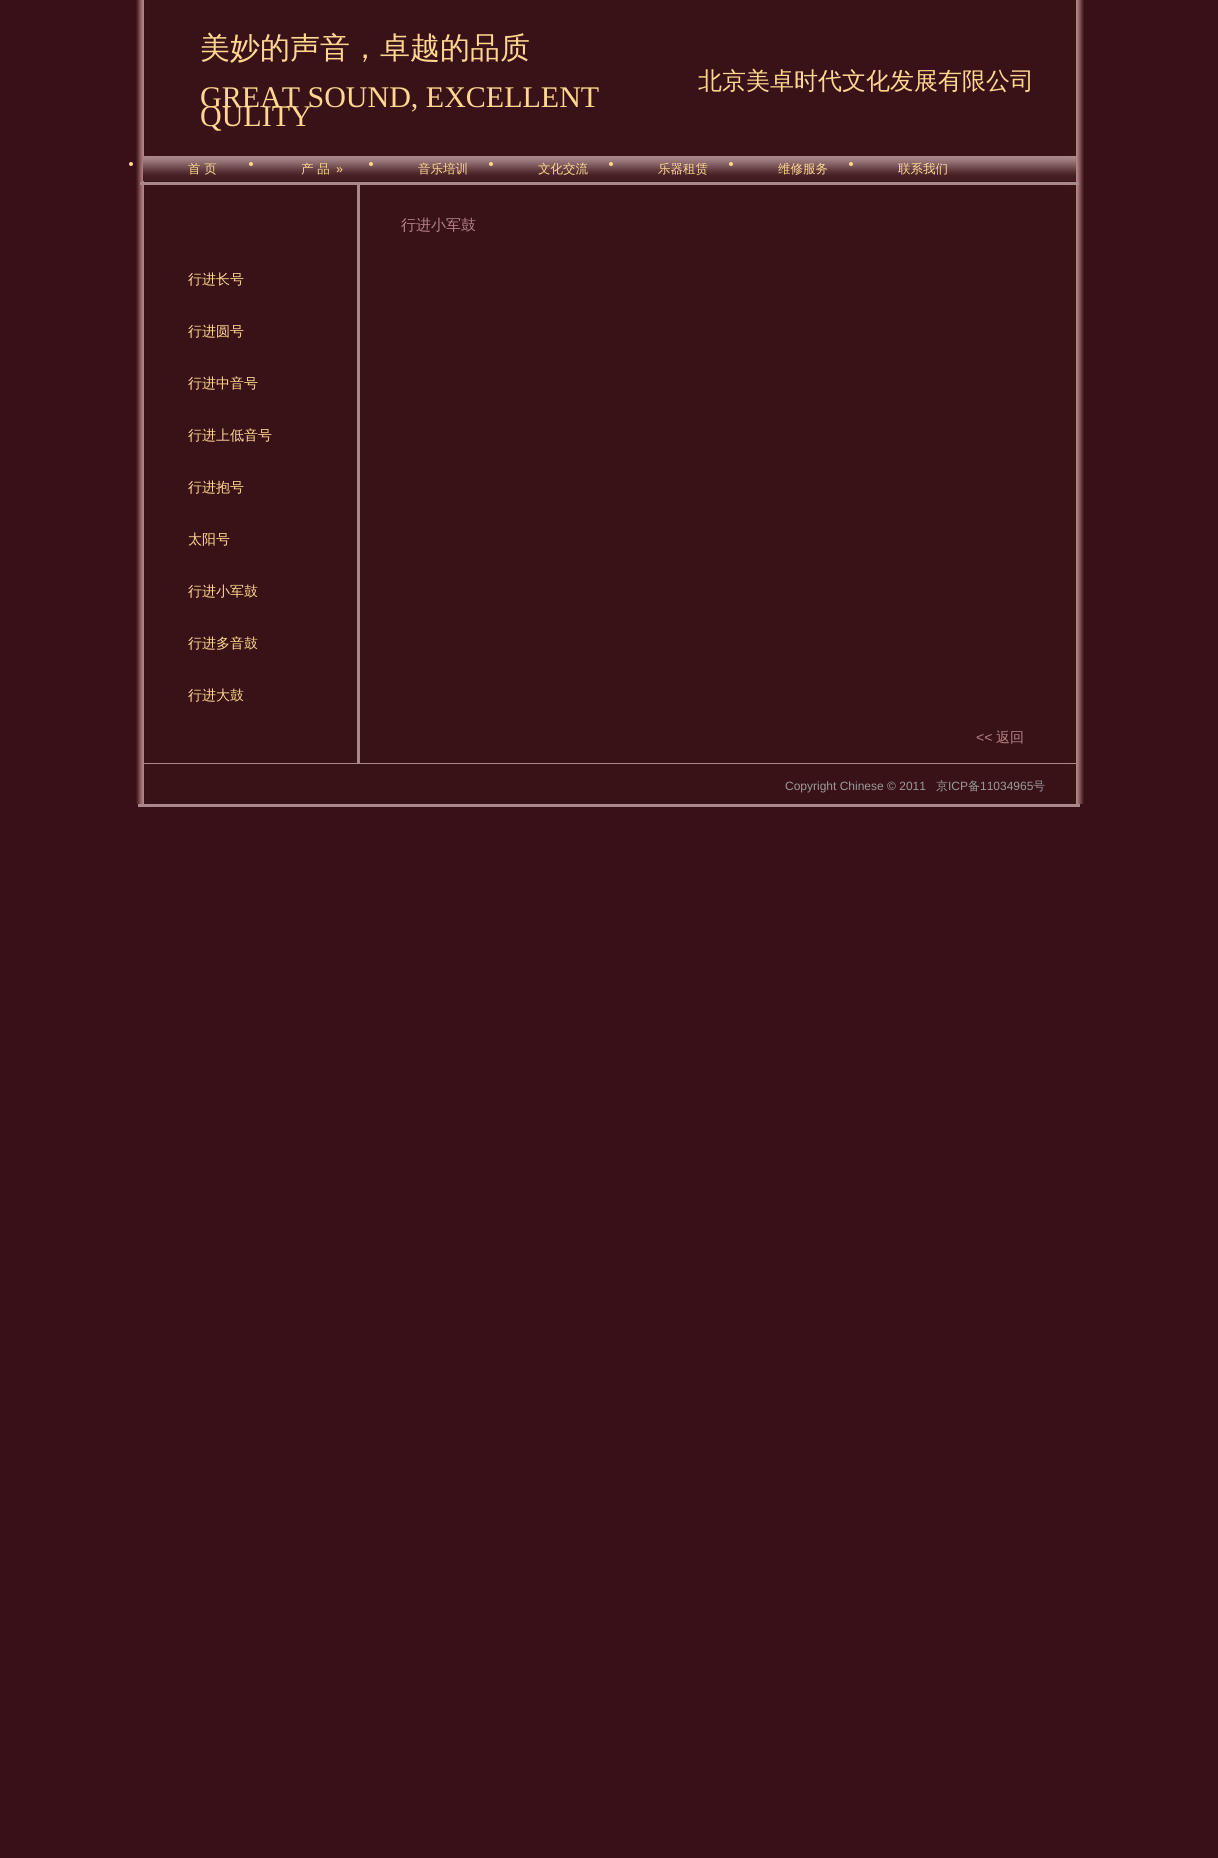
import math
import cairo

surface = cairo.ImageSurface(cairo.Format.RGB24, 1218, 1858)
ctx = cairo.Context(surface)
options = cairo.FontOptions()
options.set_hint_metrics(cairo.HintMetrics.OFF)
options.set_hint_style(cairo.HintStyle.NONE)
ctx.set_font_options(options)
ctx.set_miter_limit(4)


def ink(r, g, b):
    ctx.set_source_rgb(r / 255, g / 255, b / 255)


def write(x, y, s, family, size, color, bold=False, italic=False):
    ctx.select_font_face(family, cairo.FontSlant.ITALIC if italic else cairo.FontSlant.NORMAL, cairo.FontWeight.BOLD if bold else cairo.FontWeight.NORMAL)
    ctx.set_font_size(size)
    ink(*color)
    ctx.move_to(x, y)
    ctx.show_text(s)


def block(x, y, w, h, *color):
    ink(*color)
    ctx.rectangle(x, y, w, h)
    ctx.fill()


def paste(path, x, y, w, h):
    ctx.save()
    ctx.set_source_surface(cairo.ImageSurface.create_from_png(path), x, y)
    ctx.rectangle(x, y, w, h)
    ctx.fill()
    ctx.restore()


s1 = dict(family="WenQuanYi Zen Hei Medium", size=30, color=(255, 215, 145))
s2 = dict(family="Liberation Serif", size=30, color=(255, 215, 145))
s3 = dict(family="WenQuanYi Zen Hei Medium", size=24, color=(255, 215, 145))
s4 = dict(family="WenQuanYi Zen Hei Medium", size=12.5, color=(255, 215, 145))
s5 = dict(family="Liberation Sans", size=12.5, color=(255, 215, 145))
s6 = dict(family="WenQuanYi Zen Hei Medium", size=15, color=(180, 131, 134))
s7 = dict(family="WenQuanYi Zen Hei Medium", size=14, color=(255, 215, 145))
s8 = dict(family="Liberation Sans", size=14, color=(180, 131, 134))
s9 = dict(family="WenQuanYi Zen Hei Medium", size=14, color=(180, 131, 134))
s10 = dict(family="Liberation Sans", size=12, color=(153, 153, 153))
s11 = dict(family="WenQuanYi Zen Hei Medium", size=12, color=(153, 153, 153))

ink(57, 16, 24)
ctx.paint()
paste("pic1.png", 136, 0, 949, 804)
write(200, 58, "美妙的声音，卓越的品质", **s1)
write(200, 107, "GREAT SOUND, EXCELLENT", **s2)
write(200, 126, "QULITY", **s2)
write(698, 89, "北京美卓时代文化发展有限公司", **s3)
paste("pic2.png", 143, 156, 933, 25)
ctx.arc(131, 164, 2, 0, 2 * math.pi)
ctx.fill()
write(188, 173, "首 页", **s4)
ctx.new_path()
ctx.arc(251, 164, 2, 0, 2 * math.pi)
ctx.fill()
write(301, 173, "产 品", **s4)
write(336, 173, "»", **s5)
ctx.new_path()
ctx.arc(371, 164, 2, 0, 2 * math.pi)
ctx.fill()
write(418, 173, "音乐培训", **s4)
ctx.new_path()
ctx.arc(491, 164, 2, 0, 2 * math.pi)
ctx.fill()
write(538, 173, "文化交流", **s4)
ctx.new_path()
ctx.arc(611, 164, 2, 0, 2 * math.pi)
ctx.fill()
write(658, 173, "乐器租赁", **s4)
ctx.new_path()
ctx.arc(731, 164, 2, 0, 2 * math.pi)
ctx.fill()
write(778, 173, "维修服务", **s4)
ctx.new_path()
ctx.arc(851, 164, 2, 0, 2 * math.pi)
ctx.fill()
write(898, 173, "联系我们", **s4)
block(140, 182, 939, 3, 170, 135, 138)
block(357, 185, 3, 578, 170, 135, 138)
write(401, 230, "行进小军鼓", **s6)
write(188, 284, "行进长号", **s7)
write(188, 336, "行进圆号", **s7)
write(188, 388, "行进中音号", **s7)
write(188, 440, "行进上低音号", **s7)
write(188, 492, "行进抱号", **s7)
write(188, 544, "太阳号", **s7)
write(188, 596, "行进小军鼓", **s7)
write(188, 648, "行进多音鼓", **s7)
write(188, 700, "行进大鼓", **s7)
write(976, 742, "<<", **s8)
write(996, 742, "返回", **s9)
block(143, 763, 933, 1, 170, 135, 138)
write(785, 790, "Copyright Chinese © 2011", **s10)
write(936, 790, "京", **s11)
write(948, 790, "ICP", **s10)
write(968, 790, "备", **s11)
write(980, 790, "11034965", **s10)
write(1033, 790, "号", **s11)
block(138, 804, 942, 3, 170, 135, 138)
surface.write_to_png("screenshot.png")
